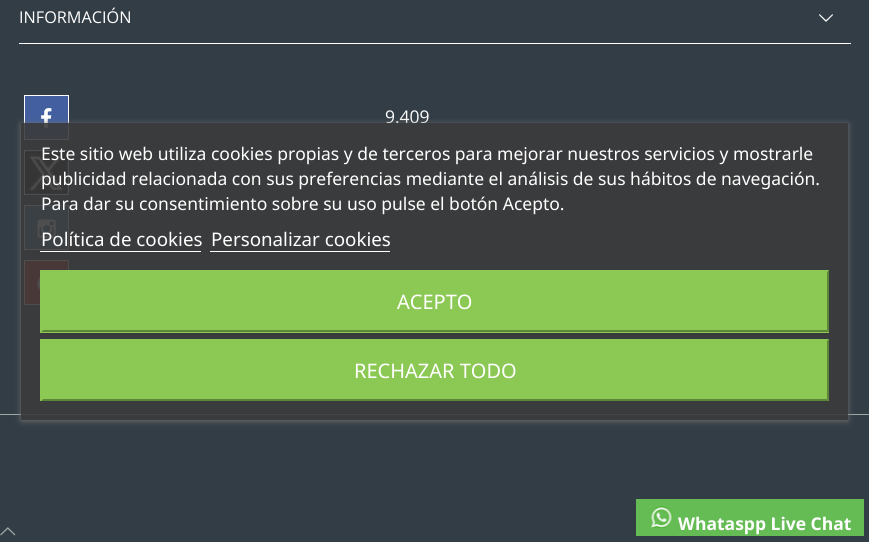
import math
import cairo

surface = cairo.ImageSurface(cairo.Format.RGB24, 869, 542)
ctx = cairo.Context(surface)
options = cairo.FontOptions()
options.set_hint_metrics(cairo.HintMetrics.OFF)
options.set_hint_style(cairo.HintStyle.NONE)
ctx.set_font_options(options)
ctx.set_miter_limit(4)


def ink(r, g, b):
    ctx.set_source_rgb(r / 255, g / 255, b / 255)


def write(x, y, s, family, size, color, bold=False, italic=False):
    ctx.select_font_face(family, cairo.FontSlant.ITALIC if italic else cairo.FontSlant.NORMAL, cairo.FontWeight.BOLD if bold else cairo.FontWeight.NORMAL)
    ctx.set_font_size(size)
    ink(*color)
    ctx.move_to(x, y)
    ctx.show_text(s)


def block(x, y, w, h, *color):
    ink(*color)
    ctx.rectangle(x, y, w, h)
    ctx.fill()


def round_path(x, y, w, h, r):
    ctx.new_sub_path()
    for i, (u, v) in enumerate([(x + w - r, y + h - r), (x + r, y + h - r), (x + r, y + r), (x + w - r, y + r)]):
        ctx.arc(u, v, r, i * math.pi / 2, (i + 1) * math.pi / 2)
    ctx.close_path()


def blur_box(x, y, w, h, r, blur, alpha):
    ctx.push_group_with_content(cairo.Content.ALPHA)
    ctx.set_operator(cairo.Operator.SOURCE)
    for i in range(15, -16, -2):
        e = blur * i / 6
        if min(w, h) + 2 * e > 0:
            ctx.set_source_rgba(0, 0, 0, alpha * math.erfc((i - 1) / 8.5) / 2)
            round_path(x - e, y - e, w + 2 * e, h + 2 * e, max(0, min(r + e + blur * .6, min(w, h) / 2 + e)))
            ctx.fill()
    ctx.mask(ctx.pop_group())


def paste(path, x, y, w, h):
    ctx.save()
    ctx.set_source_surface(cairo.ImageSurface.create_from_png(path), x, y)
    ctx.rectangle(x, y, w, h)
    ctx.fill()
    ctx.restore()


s1 = dict(family="Open Sans", size=16.25, color=(255, 255, 255))
s2 = dict(family="Open Sans", size=17.5, color=(255, 255, 255))
s3 = dict(family="Noto Sans", size=17.5, color=(255, 255, 255))
s4 = dict(family="Noto Sans", size=18.75, color=(255, 255, 255))
s5 = dict(family="Noto Sans", size=20, color=(255, 255, 255))
s6 = dict(family="Open Sans", size=17.5, color=(255, 255, 255), bold=True)

ink(51, 61, 70)
ctx.paint()
paste("pic1.png", 0, 527, 16, 9)
block(0, 414, 869, 1, 156, 169, 166)
block(19, 43, 832, 1, 255, 255, 255)
write(19, 23, "INFORMACIÓN", **s1)
paste("pic2.png", 819, 14, 14, 8)
ink(67, 95, 159)
ctx.rectangle(24.5, 95.5, 44, 44)
ctx.fill_preserve()
ink(255, 255, 255)
ctx.set_line_width(1)
ctx.stroke()
paste("pic3.png", 41, 108, 11, 20)
write(385, 123, "9.409", **s2)
ink(0, 170, 240)
ctx.rectangle(24.5, 150.5, 44, 44)
ctx.fill_preserve()
ink(255, 255, 255)
ctx.stroke()
paste("pic4.png", 25, 151, 43, 43)
ink(63, 114, 155)
ctx.rectangle(24.5, 205.5, 44, 44)
ctx.fill_preserve()
ink(255, 255, 255)
ctx.stroke()
paste("pic5.png", 37, 219, 19, 19)
ink(206, 31, 33)
ctx.rectangle(24.5, 260.5, 44, 44)
ctx.fill_preserve()
ink(255, 255, 255)
ctx.stroke()
paste("pic6.png", 37, 277, 3, 13)
ctx.save()
ctx.set_fill_rule(cairo.FillRule.EVEN_ODD)
ctx.new_path()
ctx.move_to(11, 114)
ctx.line_to(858, 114)
ctx.line_to(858, 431)
ctx.line_to(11, 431)
ctx.close_path()
ctx.move_to(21, 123)
ctx.line_to(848, 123)
ctx.line_to(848, 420)
ctx.line_to(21, 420)
ctx.close_path()
ctx.clip()
ink(112, 112, 112)
blur_box(21, 124, 827, 297, 0, 3, 1)
ctx.restore()
ctx.set_source_rgba(0.231, 0.231, 0.231, 0.9)
ctx.rectangle(21, 123, 827, 297)
ctx.fill()
write(41, 160, "Este sitio web utiliza cookies propias y de terceros para mejorar nuestros servicios y mostrarle", **s3)
write(41, 185, "publicidad relacionada con sus preferencias mediante el análisis de sus hábitos de navegación.", **s3)
write(41, 210, "Para dar su consentimiento sobre su uso pulse el botón Acepto.", **s3)
write(41, 246, "Política de cookies", **s4)
block(40, 251, 161, 1, 255, 255, 255)
write(211, 246, "Personalizar cookies", **s4)
block(210, 251, 180, 1, 255, 255, 255)
block(40, 270, 789, 63, 139, 201, 84)
ink(93, 134, 56)
ctx.new_path()
ctx.move_to(829, 270)
ctx.line_to(829, 332)
ctx.line_to(827, 330)
ctx.line_to(827, 272)
ctx.close_path()
ctx.fill()
ctx.new_path()
ctx.move_to(829, 332)
ctx.line_to(41, 332)
ctx.line_to(43, 330)
ctx.line_to(827, 330)
ctx.close_path()
ctx.fill()
ink(139, 201, 84)
ctx.new_path()
ctx.move_to(41, 332)
ctx.line_to(41, 270)
ctx.line_to(43, 272)
ctx.line_to(43, 330)
ctx.close_path()
ctx.fill()
write(397, 309, "ACEPTO", **s5)
block(40, 339, 789, 62, 139, 201, 84)
ink(93, 134, 56)
ctx.new_path()
ctx.move_to(829, 339)
ctx.line_to(829, 401)
ctx.line_to(827, 399)
ctx.line_to(827, 341)
ctx.close_path()
ctx.fill()
ctx.new_path()
ctx.move_to(829, 401)
ctx.line_to(41, 401)
ctx.line_to(43, 399)
ctx.line_to(827, 399)
ctx.close_path()
ctx.fill()
ink(139, 201, 84)
ctx.new_path()
ctx.move_to(41, 401)
ctx.line_to(41, 339)
ctx.line_to(43, 341)
ctx.line_to(43, 399)
ctx.close_path()
ctx.fill()
write(354, 378, "RECHAZAR TODO", **s5)
block(636, 499, 228, 37, 101, 188, 84)
paste("pic7.png", 649, 505, 25, 24)
write(678, 530, "Whataspp Live Chat", **s6)
surface.write_to_png("screenshot.png")
